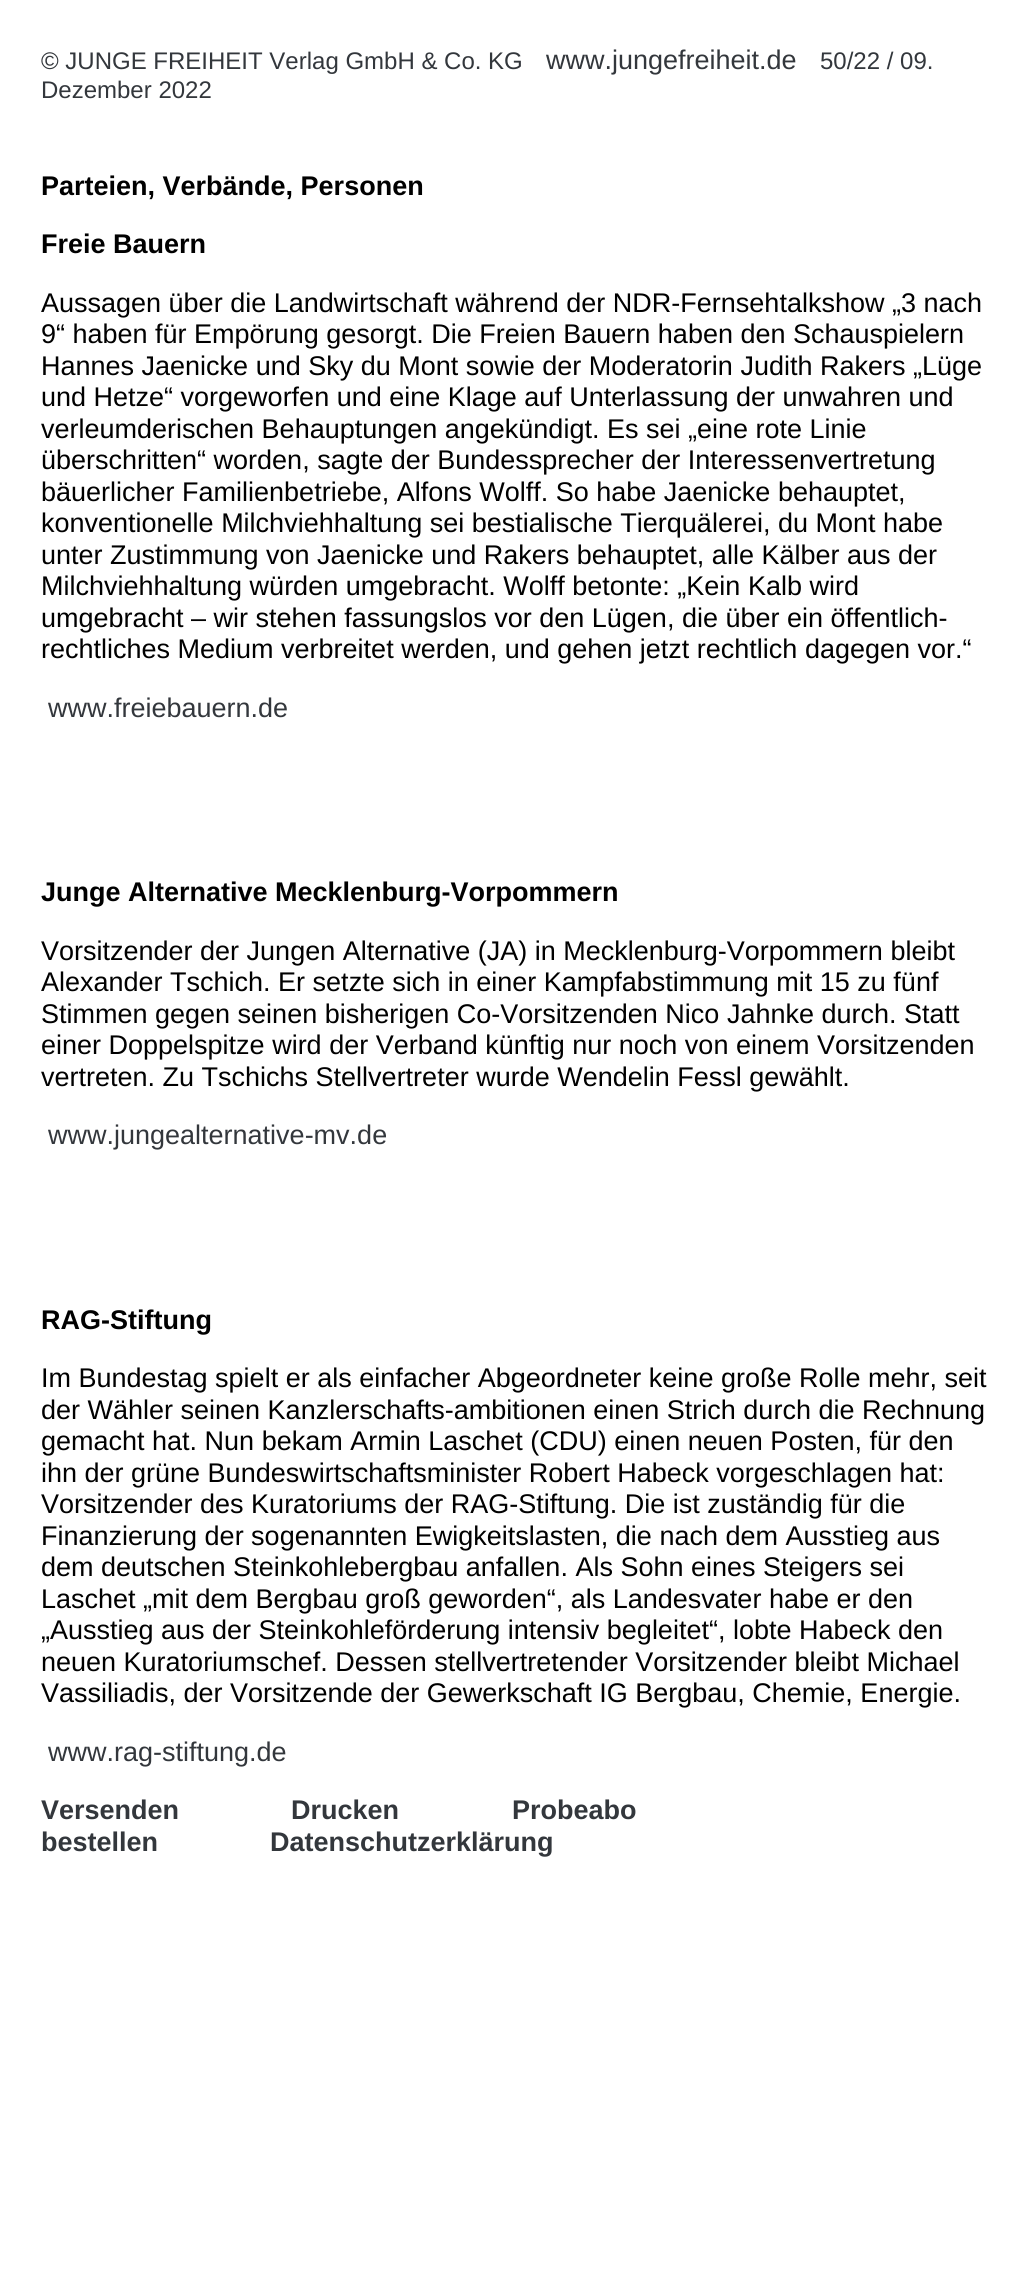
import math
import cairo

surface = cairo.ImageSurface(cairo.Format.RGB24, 1028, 2295)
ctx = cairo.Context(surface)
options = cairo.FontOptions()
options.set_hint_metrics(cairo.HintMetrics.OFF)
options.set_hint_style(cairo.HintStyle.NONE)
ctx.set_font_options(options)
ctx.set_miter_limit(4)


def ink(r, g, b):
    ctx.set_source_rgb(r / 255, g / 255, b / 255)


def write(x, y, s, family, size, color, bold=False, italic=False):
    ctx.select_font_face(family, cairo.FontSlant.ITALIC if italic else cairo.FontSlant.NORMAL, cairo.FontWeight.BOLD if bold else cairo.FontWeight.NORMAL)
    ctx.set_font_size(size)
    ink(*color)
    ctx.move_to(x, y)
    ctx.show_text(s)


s1 = dict(family="Liberation Sans", size=24, color=(51, 55, 60))
s2 = dict(family="Liberation Sans", size=27, color=(51, 55, 60))
s3 = dict(family="Liberation Sans", size=27, color=(0, 0, 0), bold=True)
s4 = dict(family="Liberation Sans", size=27, color=(0, 0, 0))
s5 = dict(family="Liberation Sans", size=27, color=(51, 55, 60), bold=True)

ink(255, 255, 255)
ctx.paint()
write(41, 69, "© JUNGE FREIHEIT Verlag GmbH & Co. KG", **s1)
write(546, 69, "www.jungefreiheit.de", **s2)
write(820, 69, "50/22 / 09.", **s1)
write(41, 98, "Dezember 2022", **s1)
write(41, 195, "Parteien, Verbände, Personen", **s3)
write(41, 253, "Freie Bauern", **s3)
write(41, 312, "Aussagen über die Landwirtschaft während der NDR-Fernsehtalkshow „3 nach", **s4)
write(41, 343, "9“ haben für Empörung gesorgt. Die Freien Bauern haben den Schauspielern", **s4)
write(41, 375, "Hannes Jaenicke und Sky du Mont sowie der Moderatorin Judith Rakers „Lüge", **s4)
write(41, 406, "und Hetze“ vorgeworfen und eine Klage auf Unterlassung der unwahren und", **s4)
write(41, 438, "verleumderischen Behauptungen angekündigt. Es sei „eine rote Linie", **s4)
write(41, 469, "überschritten“ worden, sagte der Bundessprecher der Interessenvertretung", **s4)
write(41, 501, "bäuerlicher Familienbetriebe, Alfons Wolff. So habe Jaenicke behauptet,", **s4)
write(41, 532, "konventionelle Milchviehhaltung sei bestialische Tierquälerei, du Mont habe", **s4)
write(41, 564, "unter Zustimmung von Jaenicke und Rakers behauptet, alle Kälber aus der", **s4)
write(41, 595, "Milchviehhaltung würden umgebracht. Wolff betonte: „Kein Kalb wird", **s4)
write(41, 627, "umgebracht – wir stehen fassungslos vor den Lügen, die über ein öffentlich-", **s4)
write(41, 658, "rechtliches Medium verbreitet werden, und gehen jetzt rechtlich dagegen vor.“", **s4)
write(48, 717, "www.freiebauern.de", **s2)
write(41, 901, "Junge Alternative Mecklenburg-Vorpommern", **s3)
write(41, 960, "Vorsitzender der Jungen Alternative (JA) in Mecklenburg-Vorpommern bleibt", **s4)
write(41, 991, "Alexander Tschich. Er setzte sich in einer Kampfabstimmung mit 15 zu fünf", **s4)
write(41, 1023, "Stimmen gegen seinen bisherigen Co-Vorsitzenden Nico Jahnke durch. Statt", **s4)
write(41, 1054, "einer Doppelspitze wird der Verband künftig nur noch von einem Vorsitzenden", **s4)
write(41, 1086, "vertreten. Zu Tschichs Stellvertreter wurde Wendelin Fessl gewählt.", **s4)
write(48, 1144, "www.jungealternative-mv.de", **s2)
write(41, 1329, "RAG-Stiftung", **s3)
write(41, 1387, "Im Bundestag spielt er als einfacher Abgeordneter keine große Rolle mehr, seit", **s4)
write(41, 1419, "der Wähler seinen Kanzlerschafts-ambitionen einen Strich durch die Rechnung", **s4)
write(41, 1450, "gemacht hat. Nun bekam Armin Laschet (CDU) einen neuen Posten, für den", **s4)
write(41, 1482, "ihn der grüne Bundeswirtschaftsminister Robert Habeck vorgeschlagen hat:", **s4)
write(41, 1513, "Vorsitzender des Kuratoriums der RAG-Stiftung. Die ist zuständig für die", **s4)
write(41, 1545, "Finanzierung der sogenannten Ewigkeitslasten, die nach dem Ausstieg aus", **s4)
write(41, 1576, "dem deutschen Steinkohlebergbau anfallen. Als Sohn eines Steigers sei", **s4)
write(41, 1608, "Laschet „mit dem Bergbau groß geworden“, als Landesvater habe er den", **s4)
write(41, 1639, "„Ausstieg aus der Steinkohleförderung intensiv begleitet“, lobte Habeck den", **s4)
write(41, 1671, "neuen Kuratoriumschef. Dessen stellvertretender Vorsitzender bleibt Michael", **s4)
write(41, 1702, "Vassiliadis, der Vorsitzende der Gewerkschaft IG Bergbau, Chemie, Energie.", **s4)
write(48, 1761, "www.rag-stiftung.de", **s2)
write(41, 1819, "Versenden", **s5)
write(291, 1819, "Drucken", **s5)
write(512, 1819, "Probeabo", **s5)
write(41, 1851, "bestellen", **s5)
write(270, 1851, "Datenschutzerklärung", **s5)
surface.write_to_png("screenshot.png")
